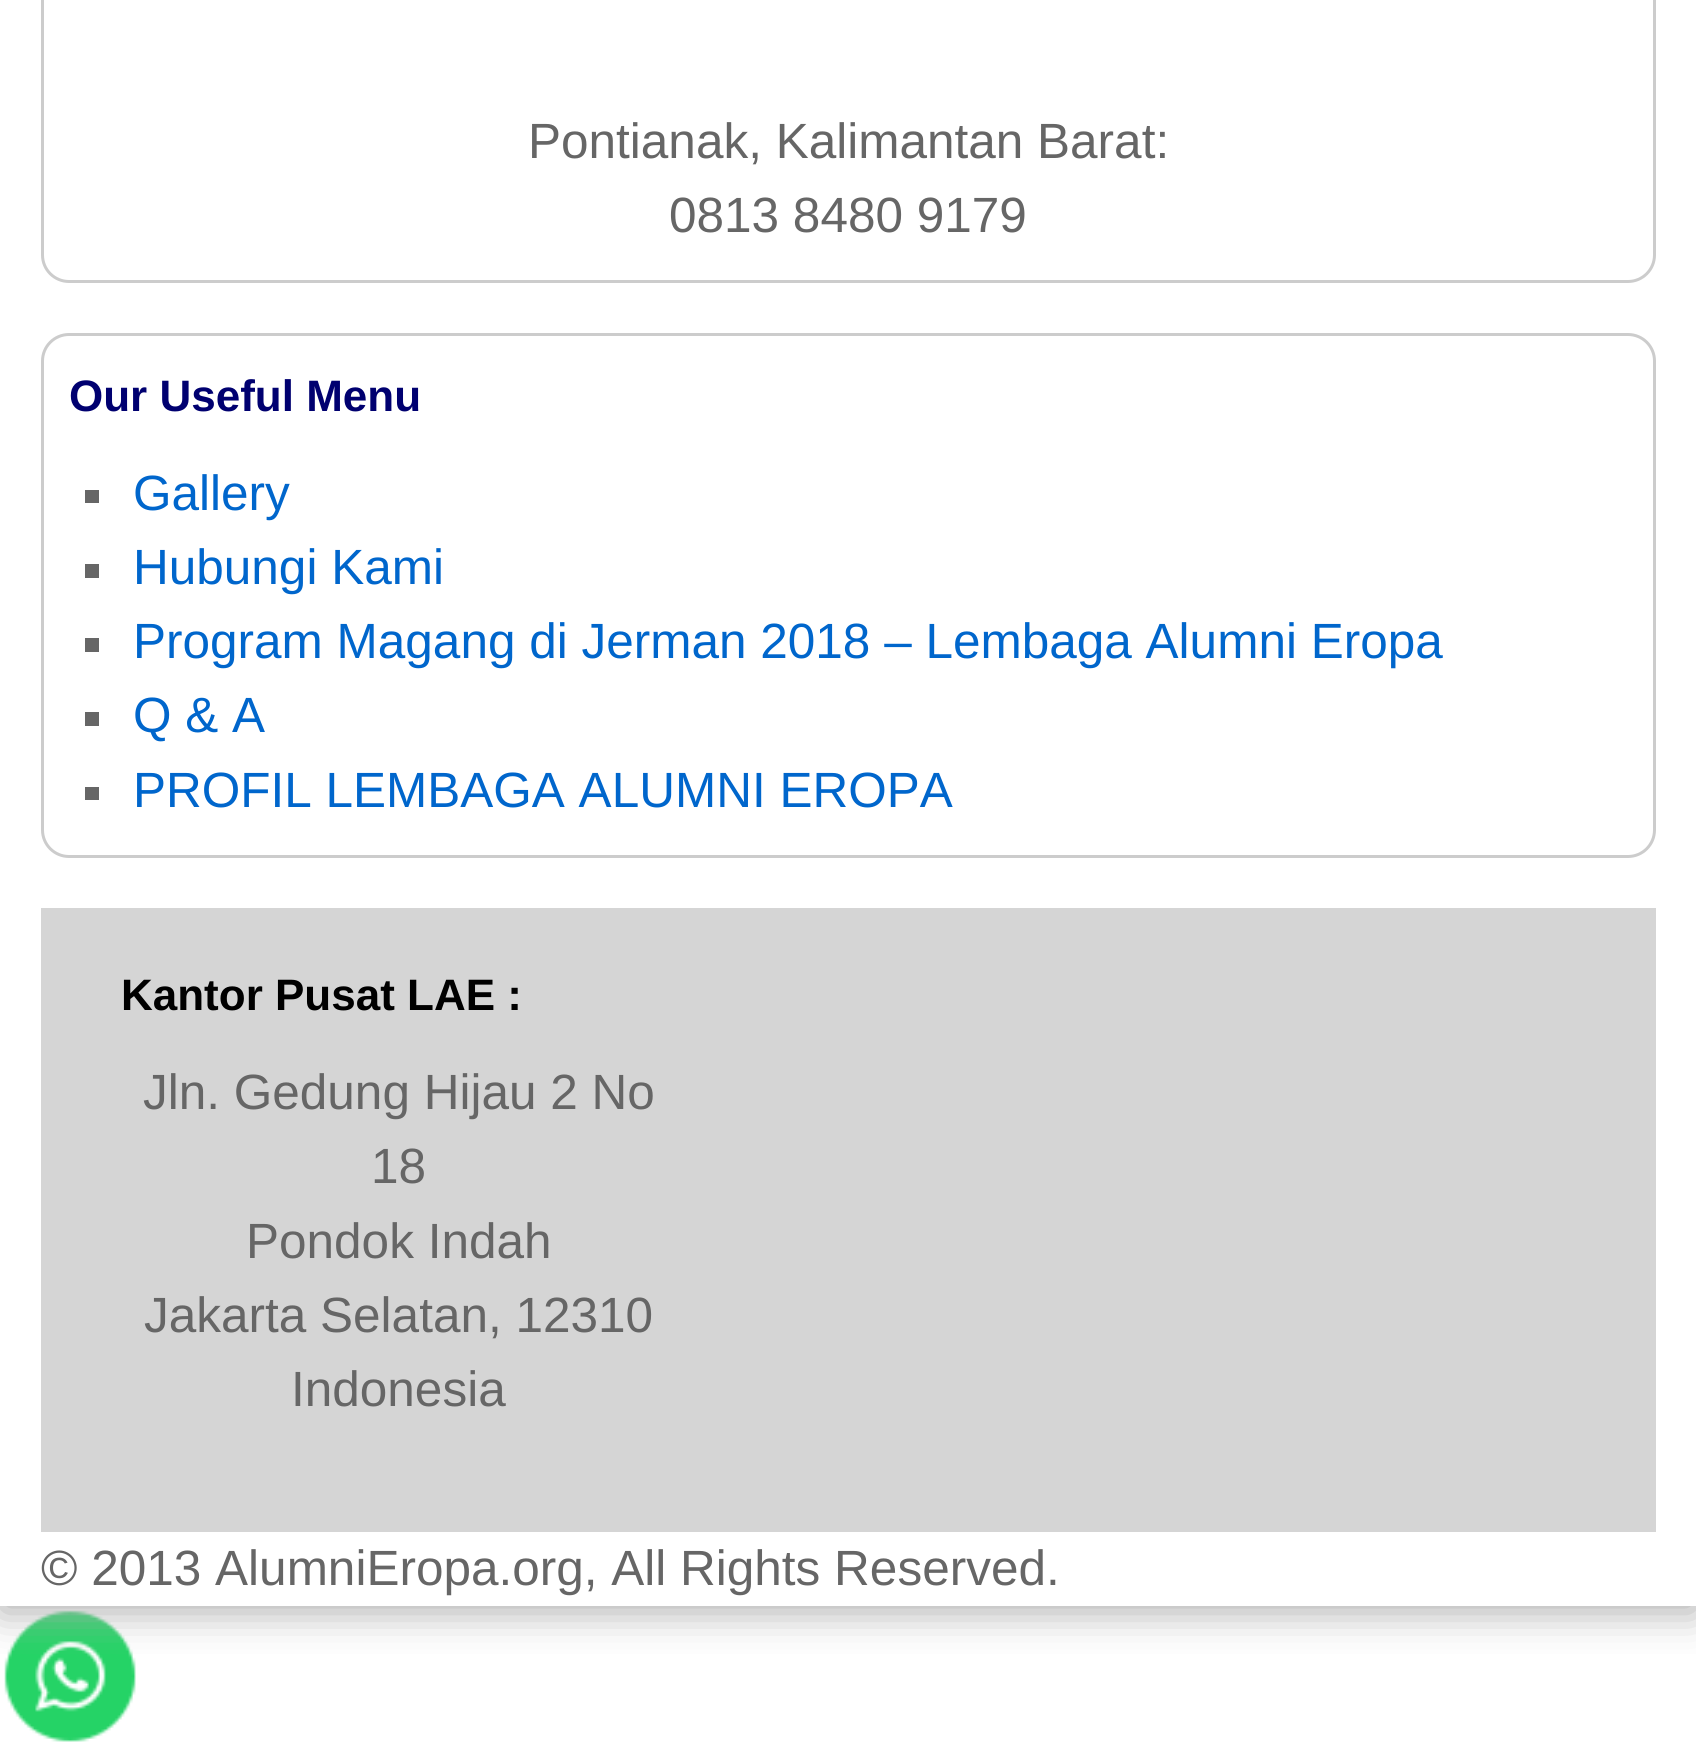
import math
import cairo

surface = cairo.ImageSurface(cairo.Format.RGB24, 1696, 1764)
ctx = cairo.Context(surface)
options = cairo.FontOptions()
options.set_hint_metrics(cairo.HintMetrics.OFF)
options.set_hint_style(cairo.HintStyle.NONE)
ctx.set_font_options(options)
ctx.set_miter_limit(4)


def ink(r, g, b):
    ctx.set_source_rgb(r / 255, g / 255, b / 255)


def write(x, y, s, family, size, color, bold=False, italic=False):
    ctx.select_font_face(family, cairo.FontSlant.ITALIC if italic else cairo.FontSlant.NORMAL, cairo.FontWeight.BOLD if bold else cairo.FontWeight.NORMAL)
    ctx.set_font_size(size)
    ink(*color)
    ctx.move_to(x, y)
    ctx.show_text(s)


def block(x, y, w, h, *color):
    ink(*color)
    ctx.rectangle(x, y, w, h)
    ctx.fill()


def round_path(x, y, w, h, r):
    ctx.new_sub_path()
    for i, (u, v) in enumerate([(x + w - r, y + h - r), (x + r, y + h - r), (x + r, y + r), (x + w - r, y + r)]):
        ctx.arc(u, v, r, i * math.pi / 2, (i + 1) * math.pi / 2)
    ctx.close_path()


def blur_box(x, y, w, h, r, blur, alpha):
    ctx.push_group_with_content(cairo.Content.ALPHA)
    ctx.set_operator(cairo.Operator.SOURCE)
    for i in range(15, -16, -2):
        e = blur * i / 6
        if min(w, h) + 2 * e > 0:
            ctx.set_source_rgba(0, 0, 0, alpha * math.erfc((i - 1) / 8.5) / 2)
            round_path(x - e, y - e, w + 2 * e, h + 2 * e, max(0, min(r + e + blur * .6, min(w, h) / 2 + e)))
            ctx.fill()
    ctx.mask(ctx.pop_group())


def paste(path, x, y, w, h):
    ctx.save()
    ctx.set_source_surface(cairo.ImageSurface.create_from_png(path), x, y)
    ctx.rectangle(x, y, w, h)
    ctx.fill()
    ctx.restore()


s1 = dict(family="Liberation Sans", size=49.5, color=(102, 102, 102))
s2 = dict(family="Liberation Sans", size=44, color=(0, 0, 112), bold=True)
s3 = dict(family="Liberation Sans", size=49.5, color=(0, 102, 204))
s4 = dict(family="Liberation Sans", size=44, color=(0, 0, 0), bold=True)

ink(255, 255, 255)
ctx.paint()
paste("pic1.png", 4, 1610, 132, 132)
ctx.save()
ctx.rectangle(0, 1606, 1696, 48)
ctx.clip()
ink(173, 173, 173)
blur_box(0, -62, 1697, 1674, 0, 20.5, 1)
ctx.restore()
round_path(42.5, -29.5, 1612, 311, 26.5)
ink(204, 204, 204)
ctx.set_line_width(3)
ctx.stroke()
write(528, 158, "Pontianak, Kalimantan Barat:", **s1)
write(669, 232, "0813 8480 9179", **s1)
round_path(42.5, 334.5, 1612, 522, 26.5)
ink(204, 204, 204)
ctx.stroke()
write(69, 411, "Our Useful Menu", **s2)
block(85, 490, 14, 13, 102, 102, 102)
write(133, 510, "Gallery", **s3)
block(85, 564, 14, 14, 102, 102, 102)
write(133, 584, "Hubungi Kami", **s3)
block(85, 638, 14, 14, 102, 102, 102)
write(133, 658, "Program Magang di Jerman 2018 – Lembaga Alumni Eropa", **s3)
block(85, 712, 14, 14, 102, 102, 102)
write(133, 732, "Q & A", **s3)
block(85, 787, 14, 13, 102, 102, 102)
write(133, 807, "PROFIL LEMBAGA ALUMNI EROPA", **s3)
block(41, 908, 1615, 624, 213, 213, 213)
write(121, 1010, "Kantor Pusat LAE :", **s4)
write(143, 1109, "Jln. Gedung Hijau 2 No", **s1)
write(371, 1183, "18", **s1)
write(246, 1258, "Pondok Indah", **s1)
write(144, 1332, "Jakarta Selatan, 12310", **s1)
write(291, 1406, "Indonesia", **s1)
write(41, 1585, "© 2013 AlumniEropa.org, All Rights Reserved.", **s1)
surface.write_to_png("screenshot.png")
